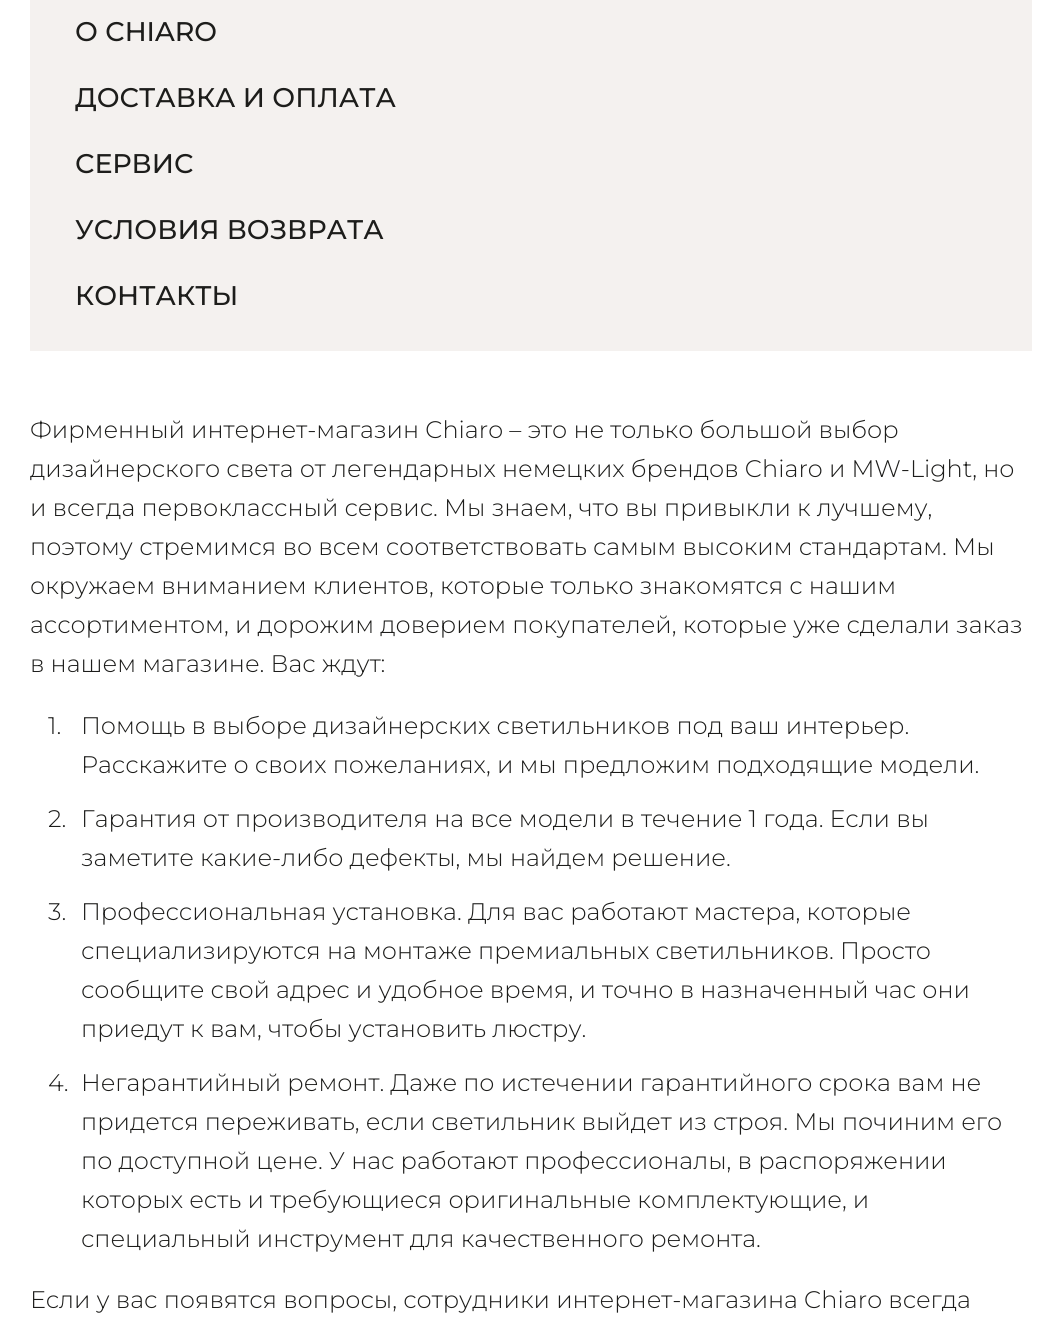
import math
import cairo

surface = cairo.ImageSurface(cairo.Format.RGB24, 1061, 1320)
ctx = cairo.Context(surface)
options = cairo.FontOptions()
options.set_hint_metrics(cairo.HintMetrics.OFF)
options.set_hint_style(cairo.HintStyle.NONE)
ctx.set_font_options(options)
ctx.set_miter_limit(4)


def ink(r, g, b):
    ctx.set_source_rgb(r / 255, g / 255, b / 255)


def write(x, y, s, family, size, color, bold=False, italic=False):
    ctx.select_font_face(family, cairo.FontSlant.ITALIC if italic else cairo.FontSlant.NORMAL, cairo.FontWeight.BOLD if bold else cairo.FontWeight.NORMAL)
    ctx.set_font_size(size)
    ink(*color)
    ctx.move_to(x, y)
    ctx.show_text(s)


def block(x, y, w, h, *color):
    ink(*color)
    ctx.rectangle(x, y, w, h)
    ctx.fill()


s1 = dict(family="Montserrat Medium", size=27, color=(29, 29, 27))
s2 = dict(family="Montserrat Light", size=24, color=(29, 29, 27))

ink(255, 255, 255)
ctx.paint()
block(30, 0, 1002, 351, 244, 241, 239)
write(75, 41, "О CHIARO", **s1)
write(75, 107, "ДОСТАВКА И ОПЛАТА", **s1)
write(75, 173, "СЕРВИС", **s1)
write(75, 239, "УСЛОВИЯ ВОЗВРАТА", **s1)
write(75, 305, "КОНТАКТЫ", **s1)
write(30, 438, "Фирменный интернет-магазин Chiaro – это не только большой выбор", **s2)
write(30, 477, "дизайнерского света от легендарных немецких брендов Chiaro и MW-Light, но", **s2)
write(30, 516, "и всегда первоклассный сервис. Мы знаем, что вы привыкли к лучшему,", **s2)
write(30, 555, "поэтому стремимся во всем соответствовать самым высоким стандартам. Мы", **s2)
write(30, 594, "окружаем вниманием клиентов, которые только знакомятся с нашим", **s2)
write(30, 633, "ассортиментом, и дорожим доверием покупателей, которые уже сделали заказ", **s2)
write(30, 672, "в нашем магазине. Вас ждут:", **s2)
write(48, 734, "1.", **s2)
write(81, 734, "Помощь в выборе дизайнерских светильников под ваш интерьер.", **s2)
write(81, 773, "Расскажите о своих пожеланиях, и мы предложим подходящие модели.", **s2)
write(48, 827, "2.", **s2)
write(81, 827, "Гарантия от производителя на все модели в течение 1 года. Если вы", **s2)
write(81, 866, "заметите какие-либо дефекты, мы найдем решение.", **s2)
write(48, 920, "3.", **s2)
write(81, 920, "Профессиональная установка. Для вас работают мастера, которые", **s2)
write(81, 959, "специализируются на монтаже премиальных светильников. Просто", **s2)
write(81, 998, "сообщите свой адрес и удобное время, и точно в назначенный час они", **s2)
write(81, 1037, "приедут к вам, чтобы установить люстру.", **s2)
write(48, 1091, "4.", **s2)
write(81, 1091, "Негарантийный ремонт. Даже по истечении гарантийного срока вам не", **s2)
write(81, 1130, "придется переживать, если светильник выйдет из строя. Мы починим его", **s2)
write(81, 1169, "по доступной цене. У нас работают профессионалы, в распоряжении", **s2)
write(81, 1208, "которых есть и требующиеся оригинальные комплектующие, и", **s2)
write(81, 1247, "специальный инструмент для качественного ремонта.", **s2)
write(30, 1308, "Если у вас появятся вопросы, сотрудники интернет-магазина Chiaro всегда", **s2)
surface.write_to_png("screenshot.png")
